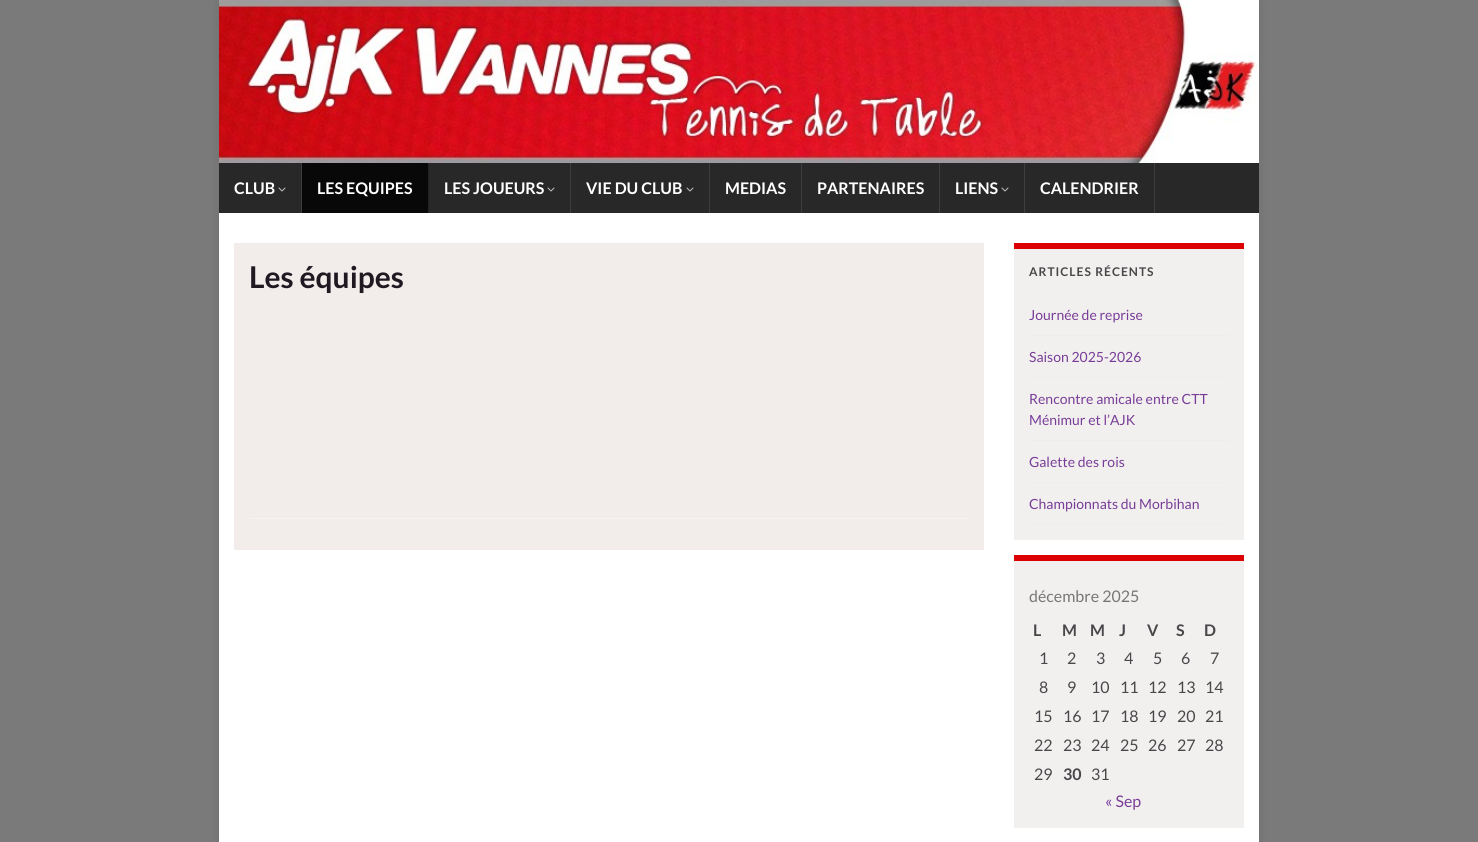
import math
import cairo

surface = cairo.ImageSurface(cairo.Format.RGB24, 1478, 842)
ctx = cairo.Context(surface)
options = cairo.FontOptions()
options.set_hint_metrics(cairo.HintMetrics.OFF)
options.set_hint_style(cairo.HintStyle.NONE)
ctx.set_font_options(options)
ctx.set_miter_limit(4)


def ink(r, g, b):
    ctx.set_source_rgb(r / 255, g / 255, b / 255)


def write(x, y, s, family, size, color, bold=False, italic=False):
    ctx.select_font_face(family, cairo.FontSlant.ITALIC if italic else cairo.FontSlant.NORMAL, cairo.FontWeight.BOLD if bold else cairo.FontWeight.NORMAL)
    ctx.set_font_size(size)
    ink(*color)
    ctx.move_to(x, y)
    ctx.show_text(s)


def write_spaced(x, y, s, letter, word):
    ctx.move_to(x, y)
    for ch in s:
        ctx.show_text(ch)
        ctx.rel_move_to(letter + word * (ch == ' '), 0)


def block(x, y, w, h, *color):
    ink(*color)
    ctx.rectangle(x, y, w, h)
    ctx.fill()


def round_path(x, y, w, h, r):
    ctx.new_sub_path()
    for i, (u, v) in enumerate([(x + w - r, y + h - r), (x + r, y + h - r), (x + r, y + r), (x + w - r, y + r)]):
        ctx.arc(u, v, r, i * math.pi / 2, (i + 1) * math.pi / 2)
    ctx.close_path()


def blur_box(x, y, w, h, r, blur, alpha):
    ctx.push_group_with_content(cairo.Content.ALPHA)
    ctx.set_operator(cairo.Operator.SOURCE)
    for i in range(15, -16, -2):
        e = blur * i / 6
        if min(w, h) + 2 * e > 0:
            ctx.set_source_rgba(0, 0, 0, alpha * math.erfc((i - 1) / 8.5) / 2)
            round_path(x - e, y - e, w + 2 * e, h + 2 * e, max(0, min(r + e + blur * .6, min(w, h) / 2 + e)))
            ctx.fill()
    ctx.mask(ctx.pop_group())


def paste(path, x, y, w, h):
    ctx.save()
    ctx.set_source_surface(cairo.ImageSurface.create_from_png(path), x, y)
    ctx.rectangle(x, y, w, h)
    ctx.fill()
    ctx.restore()


s1 = dict(family="Lato", size=16, color=(255, 255, 255), bold=True)
s2 = dict(family="Lato", size=30, color=(31, 26, 34), bold=True)
s3 = dict(family="Lato", size=14, color=(120, 61, 152))
s4 = dict(family="Lato", size=16, color=(119, 119, 119))
s5 = dict(family="Lato", size=16, color=(74, 71, 75), bold=True)
s6 = dict(family="Lato", size=16, color=(74, 71, 75))
s7 = dict(family="Lato", size=16, color=(120, 61, 152))

ink(122, 122, 122)
ctx.paint()
ink(0, 0, 0)
blur_box(219, 0, 1040, 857, 0, 5, 0.1)
paste("pic1.png", 219, 0, 1040, 163)
block(219, 163, 1040, 50, 40, 40, 40)
block(301, 163, 1, 50, 62, 62, 62)
write(234, 194, "CLUB", **s1)
paste("pic2.png", 278, 187, 8, 5)
block(428, 163, 1, 50, 35, 35, 35)
block(302, 163, 126, 50, 8, 8, 8)
write(317, 194, "LES EQUIPES", **s1)
block(570, 163, 1, 50, 62, 62, 62)
write(444, 194, "LES JOUEURS", **s1)
paste("pic2.png", 547, 187, 8, 5)
block(709, 163, 1, 50, 62, 62, 62)
write(586, 194, "VIE DU CLUB", **s1)
paste("pic2.png", 686, 187, 8, 5)
block(801, 163, 1, 50, 62, 62, 62)
write(725, 194, "MEDIAS", **s1)
block(939, 163, 1, 50, 62, 62, 62)
write(817, 194, "PARTENAIRES", **s1)
block(1024, 163, 1, 50, 62, 62, 62)
write(955, 194, "LIENS", **s1)
paste("pic2.png", 1001, 187, 8, 5)
block(1154, 163, 1, 50, 62, 62, 62)
write(1040, 194, "CALENDRIER", **s1)
block(219, 213, 1040, 629, 255, 255, 255)
block(234, 243, 750, 307, 242, 237, 234)
write(249, 288, "Les équipes", **s2)
block(249, 518, 720, 1, 244, 244, 244)
block(1014, 249, 230, 291, 242, 240, 239)
block(1014, 243, 230, 6, 221, 0, 0)
ctx.set_font_size(12)
ink(74, 71, 75)
write_spaced(1029, 276, "ARTICLES RÉCENTS", 1, 0)
block(1029, 335, 200, 1, 237, 237, 237)
write(1029, 320, "Journée de reprise", **s3)
block(1029, 377, 200, 1, 237, 237, 237)
write(1029, 362, "Saison 2025-2026", **s3)
block(1029, 440, 200, 1, 237, 237, 237)
write(1029, 404, "Rencontre amicale entre CTT", **s3)
write(1029, 425, "Ménimur et l’AJK", **s3)
block(1029, 482, 200, 1, 237, 237, 237)
write(1029, 467, "Galette des rois", **s3)
block(1029, 524, 200, 1, 237, 237, 237)
write(1029, 509, "Championnats du Morbihan", **s3)
block(1014, 561, 230, 267, 242, 240, 239)
block(1014, 555, 230, 6, 221, 0, 0)
write(1029, 602, "décembre 2025", **s4)
write(1033, 636, "L", **s5)
write(1062, 636, "M", **s5)
write(1090, 636, "M", **s5)
write(1119, 636, "J", **s5)
write(1147, 636, "V", **s5)
write(1176, 636, "S", **s5)
write(1204, 636, "D", **s5)
write(1039, 664, "1", **s6)
write(1067, 664, "2", **s6)
write(1096, 664, "3", **s6)
write(1124, 664, "4", **s6)
write(1153, 664, "5", **s6)
write(1181, 664, "6", **s6)
write(1210, 664, "7", **s6)
write(1039, 693, "8", **s6)
write(1067, 693, "9", **s6)
write(1091, 693, "10", **s6)
write(1120, 693, "11", **s6)
write(1148, 693, "12", **s6)
write(1177, 693, "13", **s6)
write(1205, 693, "14", **s6)
write(1034, 722, "15", **s6)
write(1063, 722, "16", **s6)
write(1091, 722, "17", **s6)
write(1120, 722, "18", **s6)
write(1148, 722, "19", **s6)
write(1177, 722, "20", **s6)
write(1205, 722, "21", **s6)
write(1034, 751, "22", **s6)
write(1063, 751, "23", **s6)
write(1091, 751, "24", **s6)
write(1120, 751, "25", **s6)
write(1148, 751, "26", **s6)
write(1177, 751, "27", **s6)
write(1205, 751, "28", **s6)
write(1034, 780, "29", **s6)
write(1063, 780, "30", **s5)
write(1091, 780, "31", **s6)
write(1105, 807, "« Sep", **s7)
surface.write_to_png("screenshot.png")
